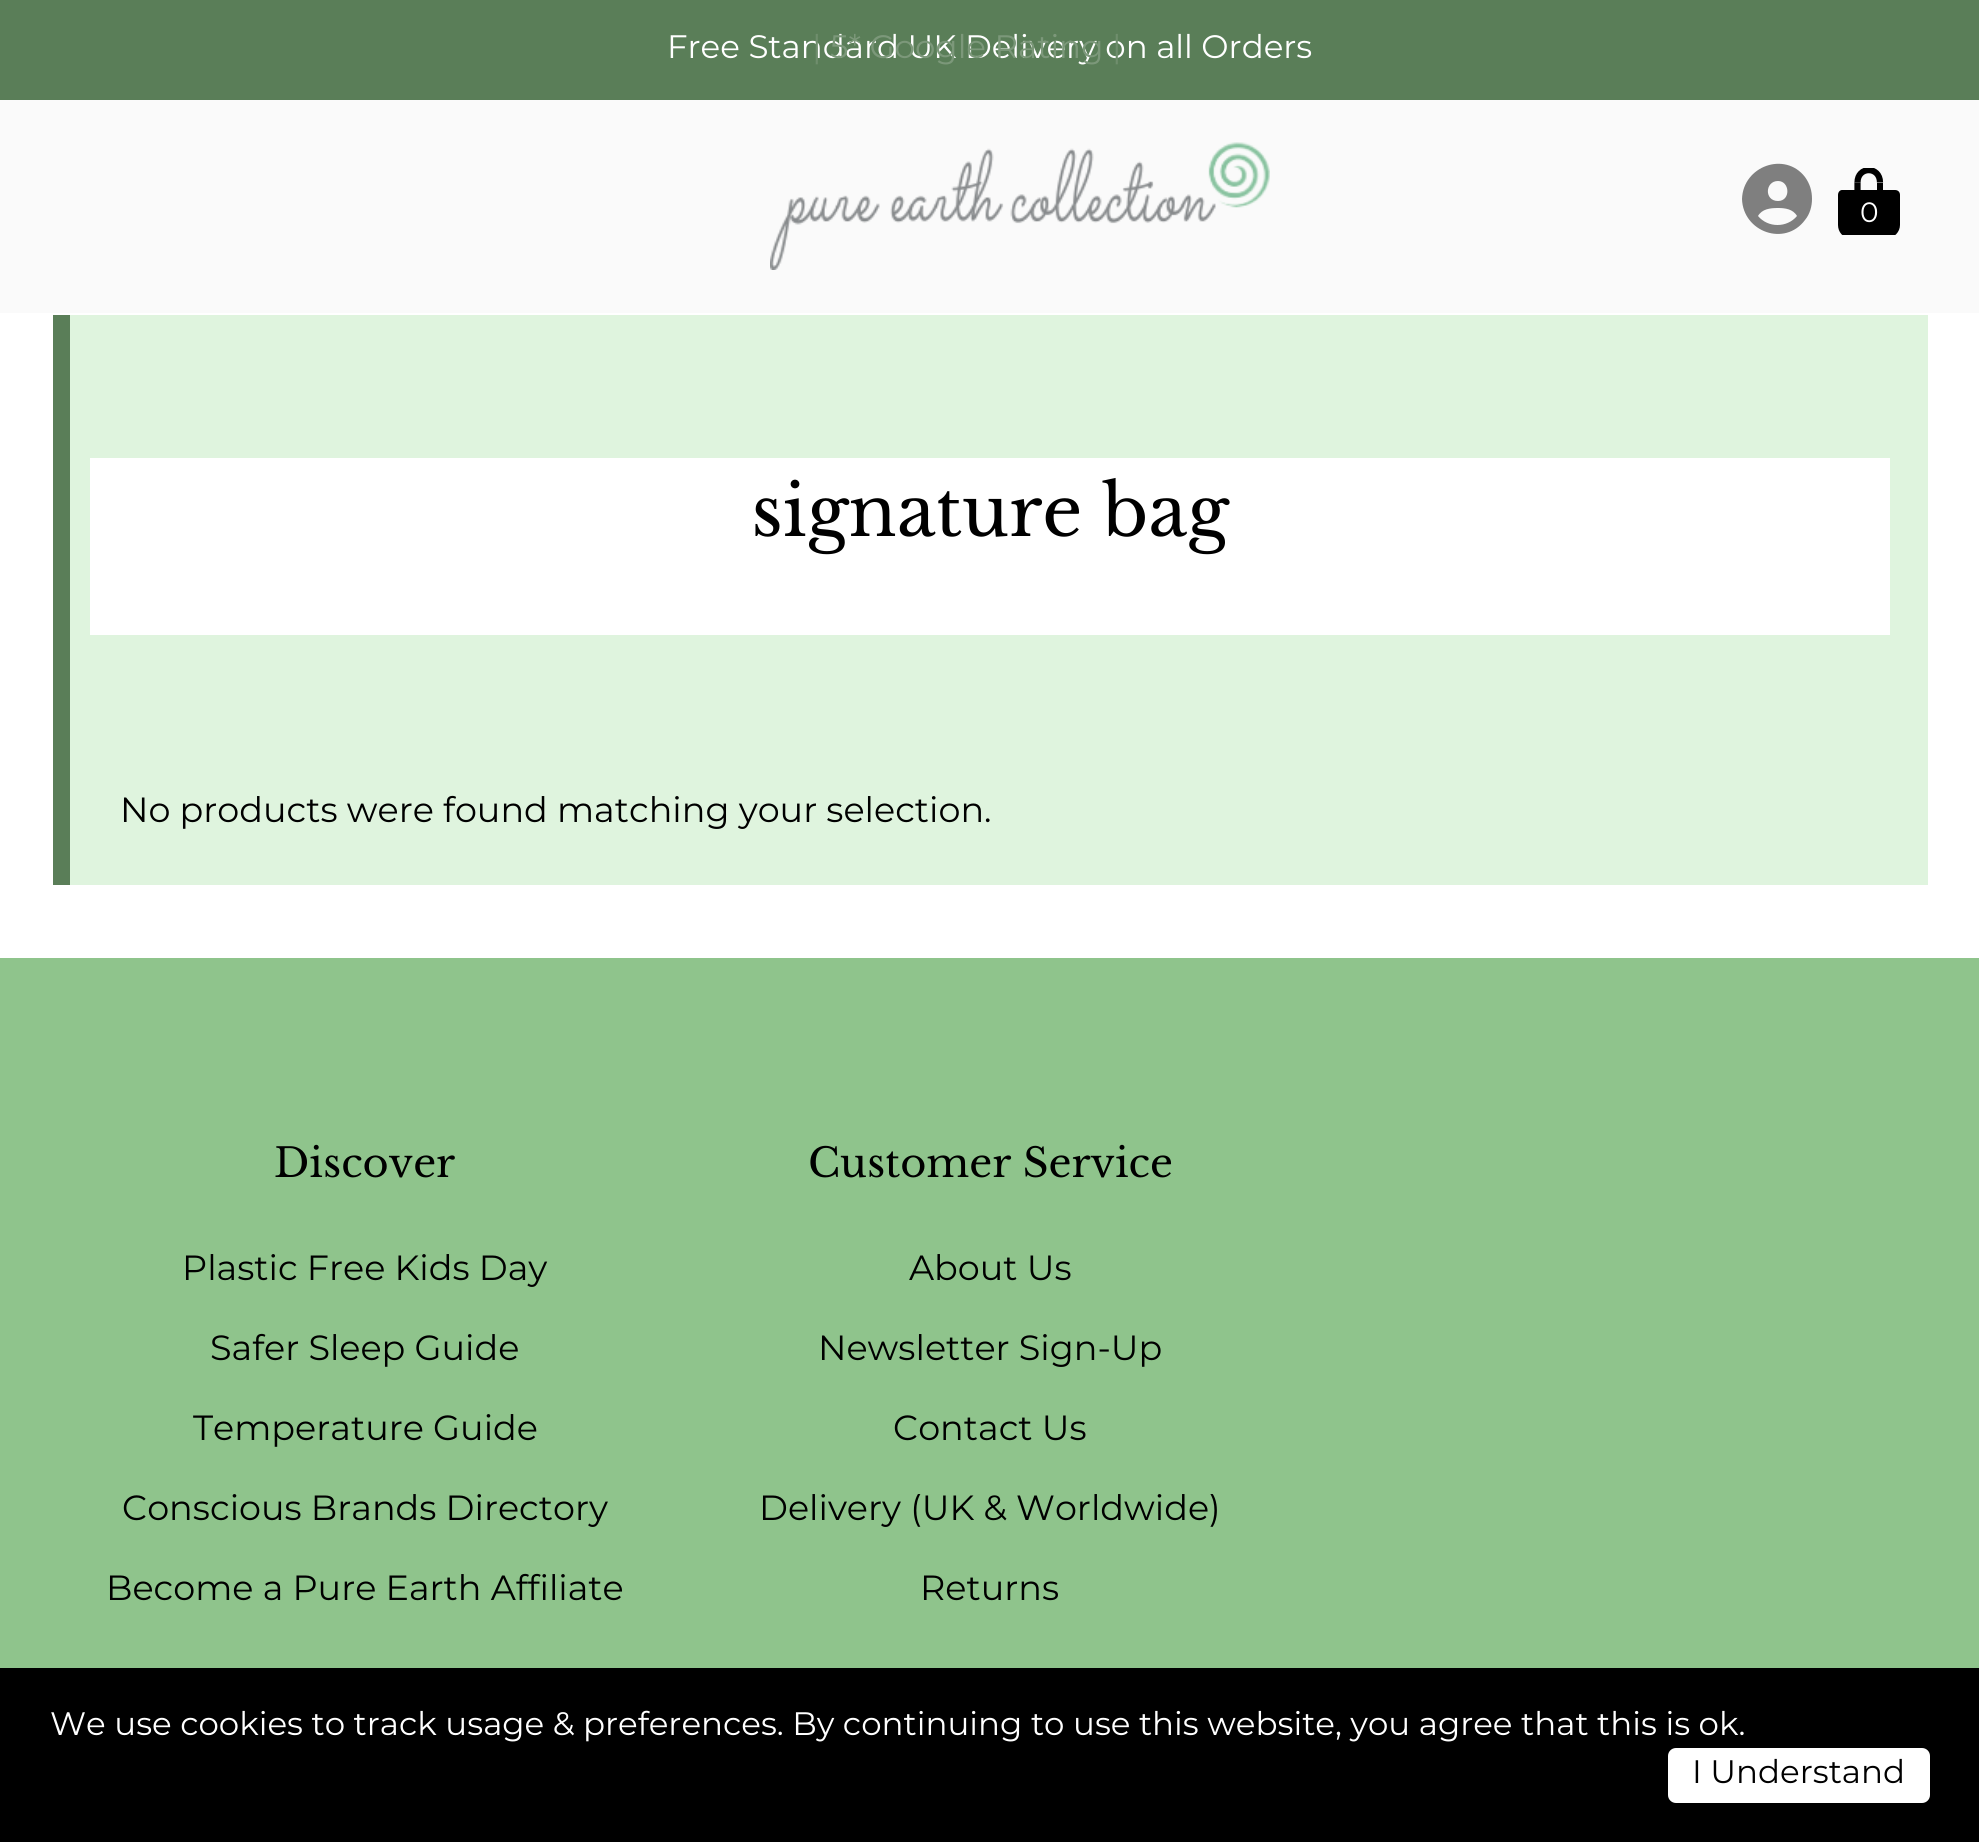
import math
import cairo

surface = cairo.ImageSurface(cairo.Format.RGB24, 1979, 1842)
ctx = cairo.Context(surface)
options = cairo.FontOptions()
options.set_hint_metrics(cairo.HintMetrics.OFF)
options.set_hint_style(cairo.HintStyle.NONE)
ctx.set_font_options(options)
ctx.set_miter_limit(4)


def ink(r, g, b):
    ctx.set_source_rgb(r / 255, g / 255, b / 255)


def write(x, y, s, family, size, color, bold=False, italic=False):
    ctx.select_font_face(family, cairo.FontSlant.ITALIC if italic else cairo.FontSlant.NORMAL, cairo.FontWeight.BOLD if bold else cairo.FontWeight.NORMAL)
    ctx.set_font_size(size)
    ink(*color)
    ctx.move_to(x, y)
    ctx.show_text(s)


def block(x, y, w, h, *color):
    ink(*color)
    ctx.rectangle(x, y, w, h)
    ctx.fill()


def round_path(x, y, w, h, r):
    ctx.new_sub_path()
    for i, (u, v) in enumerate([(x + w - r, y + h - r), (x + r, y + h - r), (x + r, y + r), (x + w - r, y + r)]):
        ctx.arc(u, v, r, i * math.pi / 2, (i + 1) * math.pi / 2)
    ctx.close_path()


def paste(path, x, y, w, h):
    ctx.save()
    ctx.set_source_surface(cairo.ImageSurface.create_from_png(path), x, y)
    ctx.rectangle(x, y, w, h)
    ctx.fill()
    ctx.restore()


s1 = dict(family="Montserrat", size=32.5, color=(255, 255, 255))
s2 = dict(family="Montserrat", size=32.5, color=(111, 142, 109))
s3 = dict(family="Montserrat", size=32.5, color=(124, 152, 122))
s4 = dict(family="Montserrat", size=28, color=(255, 255, 255))
s5 = dict(family="Libre Baskerville", size=70, color=(0, 0, 0))
s6 = dict(family="Montserrat", size=35, color=(0, 0, 0))
s7 = dict(family="Libre Baskerville", size=40, color=(0, 0, 0))
s8 = dict(family="Montserrat", size=32.5, color=(0, 0, 0))

ink(255, 255, 255)
ctx.paint()
block(0, 0, 1979, 100, 90, 126, 88)
write(667, 58, "Free Standard UK Delivery on all Orders", **s1)
write(812, 58, "|", **s2)
write(830, 58, "5* Google Rating", **s3)
write(1112, 58, "|", **s2)
block(0, 100, 1979, 213, 250, 250, 250)
paste("pic1.png", 770, 142, 500, 128)
ink(127, 127, 127)
ctx.new_path()
ctx.move_to(1797, 216)
ctx.curve_to(1793, 209, 1785, 208, 1778, 208)
ctx.curve_to(1770, 208, 1762, 209, 1758, 216)
ctx.curve_to(1768, 228, 1787, 228, 1797, 216)
ctx.close_path()
ctx.move_to(1742, 199)
ctx.curve_to(1743, 166, 1785, 151, 1805, 177)
ctx.curve_to(1810, 184, 1812, 191, 1812, 199)
ctx.curve_to(1812, 206, 1810, 214, 1805, 220)
ctx.curve_to(1785, 247, 1743, 232, 1742, 199)
ctx.close_path()
ctx.move_to(1778, 201)
ctx.curve_to(1791, 201, 1790, 181, 1778, 181)
ctx.curve_to(1765, 181, 1764, 201, 1778, 201)
ctx.close_path()
ctx.fill()
ctx.save()
ctx.rectangle(1838, 168, 62, 67)
ctx.clip()
ink(0, 0, 0)
ctx.new_path()
ctx.move_to(1838, 195)
ctx.curve_to(1838, 192, 1840, 190, 1842, 190)
ctx.line_to(1895, 190)
ctx.curve_to(1898, 190, 1900, 192, 1900, 195)
ctx.line_to(1900, 225)
ctx.curve_to(1900, 232, 1894, 238, 1888, 238)
ctx.line_to(1850, 238)
ctx.curve_to(1843, 238, 1838, 232, 1838, 225)
ctx.close_path()
ctx.fill()
ctx.new_path()
ctx.move_to(1880, 182.5)
ctx.curve_to(1880, 166, 1857.5, 166, 1857.5, 182.5)
ctx.set_line_width(6.2)
ctx.stroke()
ctx.restore()
ctx.new_path()
ctx.move_to(1857.5, 182.5)
ctx.line_to(1857.5, 190)
ink(0, 0, 0)
ctx.set_line_width(6.2)
ctx.stroke()
block(1877, 183, 6, 7, 0, 0, 0)
write(1860, 222, "0", **s4)
block(70, 315, 1858, 570, 223, 244, 222)
block(90, 458, 1800, 177, 255, 255, 255)
write(751, 536, "signature bag", **s5)
block(53, 315, 17, 570, 90, 126, 88)
write(120, 822, "No products were found matching your selection.", **s6)
block(0, 958, 1979, 710, 143, 196, 140)
write(274, 1177, "Discover", **s7)
write(182, 1280, "Plastic Free Kids Day", **s6)
write(210, 1360, "Safer Sleep Guide", **s6)
write(193, 1440, "Temperature Guide", **s6)
write(122, 1520, "Conscious Brands Directory", **s6)
write(106, 1600, "Become a Pure Earth Affiliate", **s6)
write(808, 1177, "Customer Service", **s7)
write(909, 1280, "About Us", **s6)
write(818, 1360, "Newsletter Sign-Up", **s6)
write(893, 1440, "Contact Us", **s6)
write(759, 1520, "Delivery (UK & Worldwide)", **s6)
write(920, 1600, "Returns", **s6)
block(0, 1668, 1979, 174, 0, 0, 0)
write(50, 1735, "We use cookies to track usage & preferences. By continuing to use this website, you agree that this is ok.", **s1)
round_path(1668, 1748, 262, 55, 8)
ctx.fill()
write(1692, 1783, "I Understand", **s8)
surface.write_to_png("screenshot.png")
